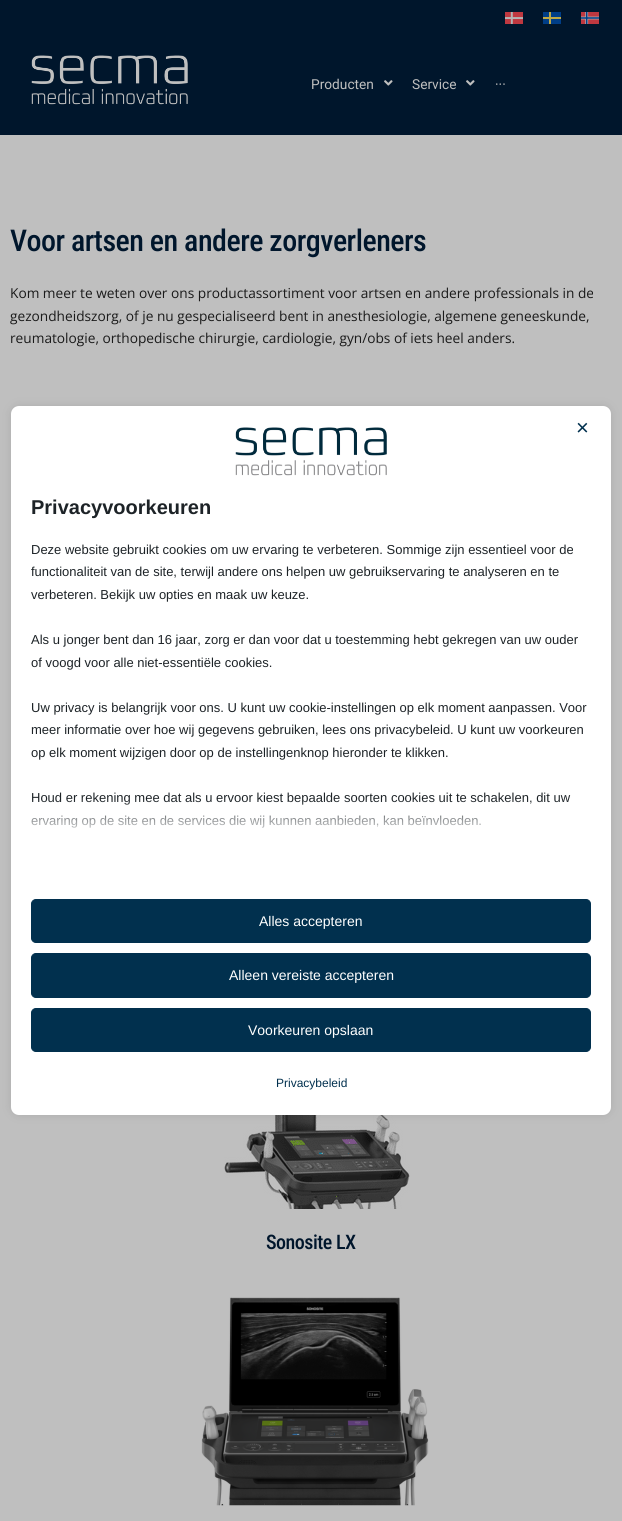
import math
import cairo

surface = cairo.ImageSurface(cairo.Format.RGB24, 622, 1521)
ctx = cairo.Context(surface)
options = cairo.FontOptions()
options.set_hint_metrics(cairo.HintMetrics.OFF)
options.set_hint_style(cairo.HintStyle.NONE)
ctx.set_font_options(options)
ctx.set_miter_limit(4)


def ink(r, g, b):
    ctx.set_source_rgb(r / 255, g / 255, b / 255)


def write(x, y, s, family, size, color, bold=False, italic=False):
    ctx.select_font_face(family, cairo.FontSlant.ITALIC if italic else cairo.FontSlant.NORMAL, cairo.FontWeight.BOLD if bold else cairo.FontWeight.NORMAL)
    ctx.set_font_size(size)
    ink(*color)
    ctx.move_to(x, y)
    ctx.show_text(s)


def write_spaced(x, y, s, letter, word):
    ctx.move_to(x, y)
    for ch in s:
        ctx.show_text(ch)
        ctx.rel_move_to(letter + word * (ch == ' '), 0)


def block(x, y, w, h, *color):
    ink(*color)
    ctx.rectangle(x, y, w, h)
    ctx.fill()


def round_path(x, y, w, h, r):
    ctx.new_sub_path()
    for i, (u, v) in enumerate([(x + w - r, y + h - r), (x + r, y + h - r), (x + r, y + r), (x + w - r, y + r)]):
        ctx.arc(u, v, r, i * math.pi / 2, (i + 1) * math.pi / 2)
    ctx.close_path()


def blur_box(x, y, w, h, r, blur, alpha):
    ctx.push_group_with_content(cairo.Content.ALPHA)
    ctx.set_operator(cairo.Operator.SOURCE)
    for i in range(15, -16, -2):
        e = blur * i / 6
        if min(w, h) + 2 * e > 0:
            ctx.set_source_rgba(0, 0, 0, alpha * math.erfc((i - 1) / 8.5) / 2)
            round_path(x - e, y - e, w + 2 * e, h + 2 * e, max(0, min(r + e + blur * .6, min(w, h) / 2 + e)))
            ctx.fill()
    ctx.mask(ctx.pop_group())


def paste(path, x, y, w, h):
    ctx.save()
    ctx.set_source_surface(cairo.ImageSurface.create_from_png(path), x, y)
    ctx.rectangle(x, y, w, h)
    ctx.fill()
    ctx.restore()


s1 = dict(family="Roboto", size=13.7, color=(191, 191, 191))
s2 = dict(family="Open Sans", size=13.7, color=(26, 26, 26))
s3 = dict(family="Liberation Sans", size=22, color=(1, 48, 78))
s4 = dict(family="Liberation Sans", size=20, color=(29, 35, 39), bold=True)
s5 = dict(family="Liberation Sans", size=13, color=(29, 35, 39))
s6 = dict(family="Liberation Sans", size=14, color=(255, 255, 255))
s7 = dict(family="Liberation Sans", size=12, color=(1, 48, 78))

ink(191, 191, 191)
ctx.paint()
block(0, 0, 622, 135, 0, 22, 44)
paste("pic1.png", 505, 12, 18, 12)
block(543, 12, 18, 12, 0, 62, 135)
block(549, 12, 2, 12, 191, 169, 68)
block(543, 17, 18, 2, 191, 169, 68)
paste("pic2.png", 581, 12, 18, 12)
paste("pic3.png", 31, 55, 157, 50)
write(311, 89, "Producten", **s1)
paste("pic4.png", 384, 80, 9, 6)
write(412, 89, "Service", **s1)
paste("pic4.png", 466, 80, 9, 6)
write(495, 89, "···", **s1)
ctx.select_font_face("Roboto Condensed Medium")
ctx.set_font_size(30)
ink(0, 22, 44)
write_spaced(10, 251, "Voor artsen en andere zorgverleners", -0.5, 0)
write(10, 298, "Kom meer te weten over ons productassortiment voor artsen en andere professionals in de", **s2)
write(10, 321, "gezondheidszorg, of je nu gespecialiseerd bent in anesthesiologie, algemene geneeskunde,", **s2)
write(10, 343, "reumatologie, orthopedische chirurgie, cardiologie, gyn/obs of iets heel anders.", **s2)
paste("pic5.png", 224, 1115, 186, 94)
ctx.select_font_face("Roboto Condensed Medium")
ctx.set_font_size(20)
ink(0, 22, 44)
write_spaced(266, 1249, "Sonosite LX", -0.5, 0)
paste("pic6.png", 201, 1297, 228, 209)
ink(0, 0, 0)
blur_box(11, 406, 600, 709, 8, 5, 0.1)
ink(255, 255, 255)
round_path(11, 406, 600, 709, 8)
ctx.fill()
paste("pic7.png", 235, 427, 152, 49)
write(576, 435, "×", **s3)
write(31, 514, "Privacyvoorkeuren", **s4)
write(31, 554, "Deze website gebruikt cookies om uw ervaring te verbeteren. Sommige zijn essentieel voor de", **s5)
write(31, 576, "functionaliteit van de site, terwijl andere ons helpen uw gebruikservaring te analyseren en te", **s5)
write(31, 599, "verbeteren. Bekijk uw opties en maak uw keuze.", **s5)
write(31, 644, "Als u jonger bent dan 16 jaar, zorg er dan voor dat u toestemming hebt gekregen van uw ouder", **s5)
write(31, 667, "of voogd voor alle niet-essentiële cookies.", **s5)
write(31, 712, "Uw privacy is belangrijk voor ons. U kunt uw cookie-instellingen op elk moment aanpassen. Voor", **s5)
write(31, 734, "meer informatie over hoe wij gegevens gebruiken, lees ons privacybeleid. U kunt uw voorkeuren", **s5)
write(31, 757, "op elk moment wijzigen door op de instellingenknop hieronder te klikken.", **s5)
write(31, 802, "Houd er rekening mee dat als u ervoor kiest bepaalde soorten cookies uit te schakelen, dit uw", **s5)
write(31, 825, "ervaring op de site en de services die wij kunnen aanbieden, kan beïnvloeden.", **s5)
gradient = cairo.LinearGradient(311, 839, 311, 799)
gradient.add_color_stop_rgba(0, 1, 1, 1, 1)
gradient.add_color_stop_rgba(1, 1, 1, 1, 0)
ctx.set_source(gradient)
ctx.rectangle(31, 800, 538, 28)
ctx.fill()
ink(1, 48, 78)
round_path(31.5, 899.5, 559, 43, 4.5)
ctx.fill_preserve()
ctx.set_line_width(1)
ctx.stroke()
write(259, 926, "Alles accepteren", **s6)
ink(1, 48, 78)
round_path(31.5, 953.5, 559, 44, 4.5)
ctx.fill_preserve()
ctx.stroke()
write(229, 980, "Alleen vereiste accepteren", **s6)
ink(1, 48, 78)
round_path(31.5, 1008.5, 559, 43, 4.5)
ctx.fill_preserve()
ctx.stroke()
write(248, 1035, "Voorkeuren opslaan", **s6)
write(276, 1087, "Privacybeleid", **s7)
surface.write_to_png("screenshot.png")
